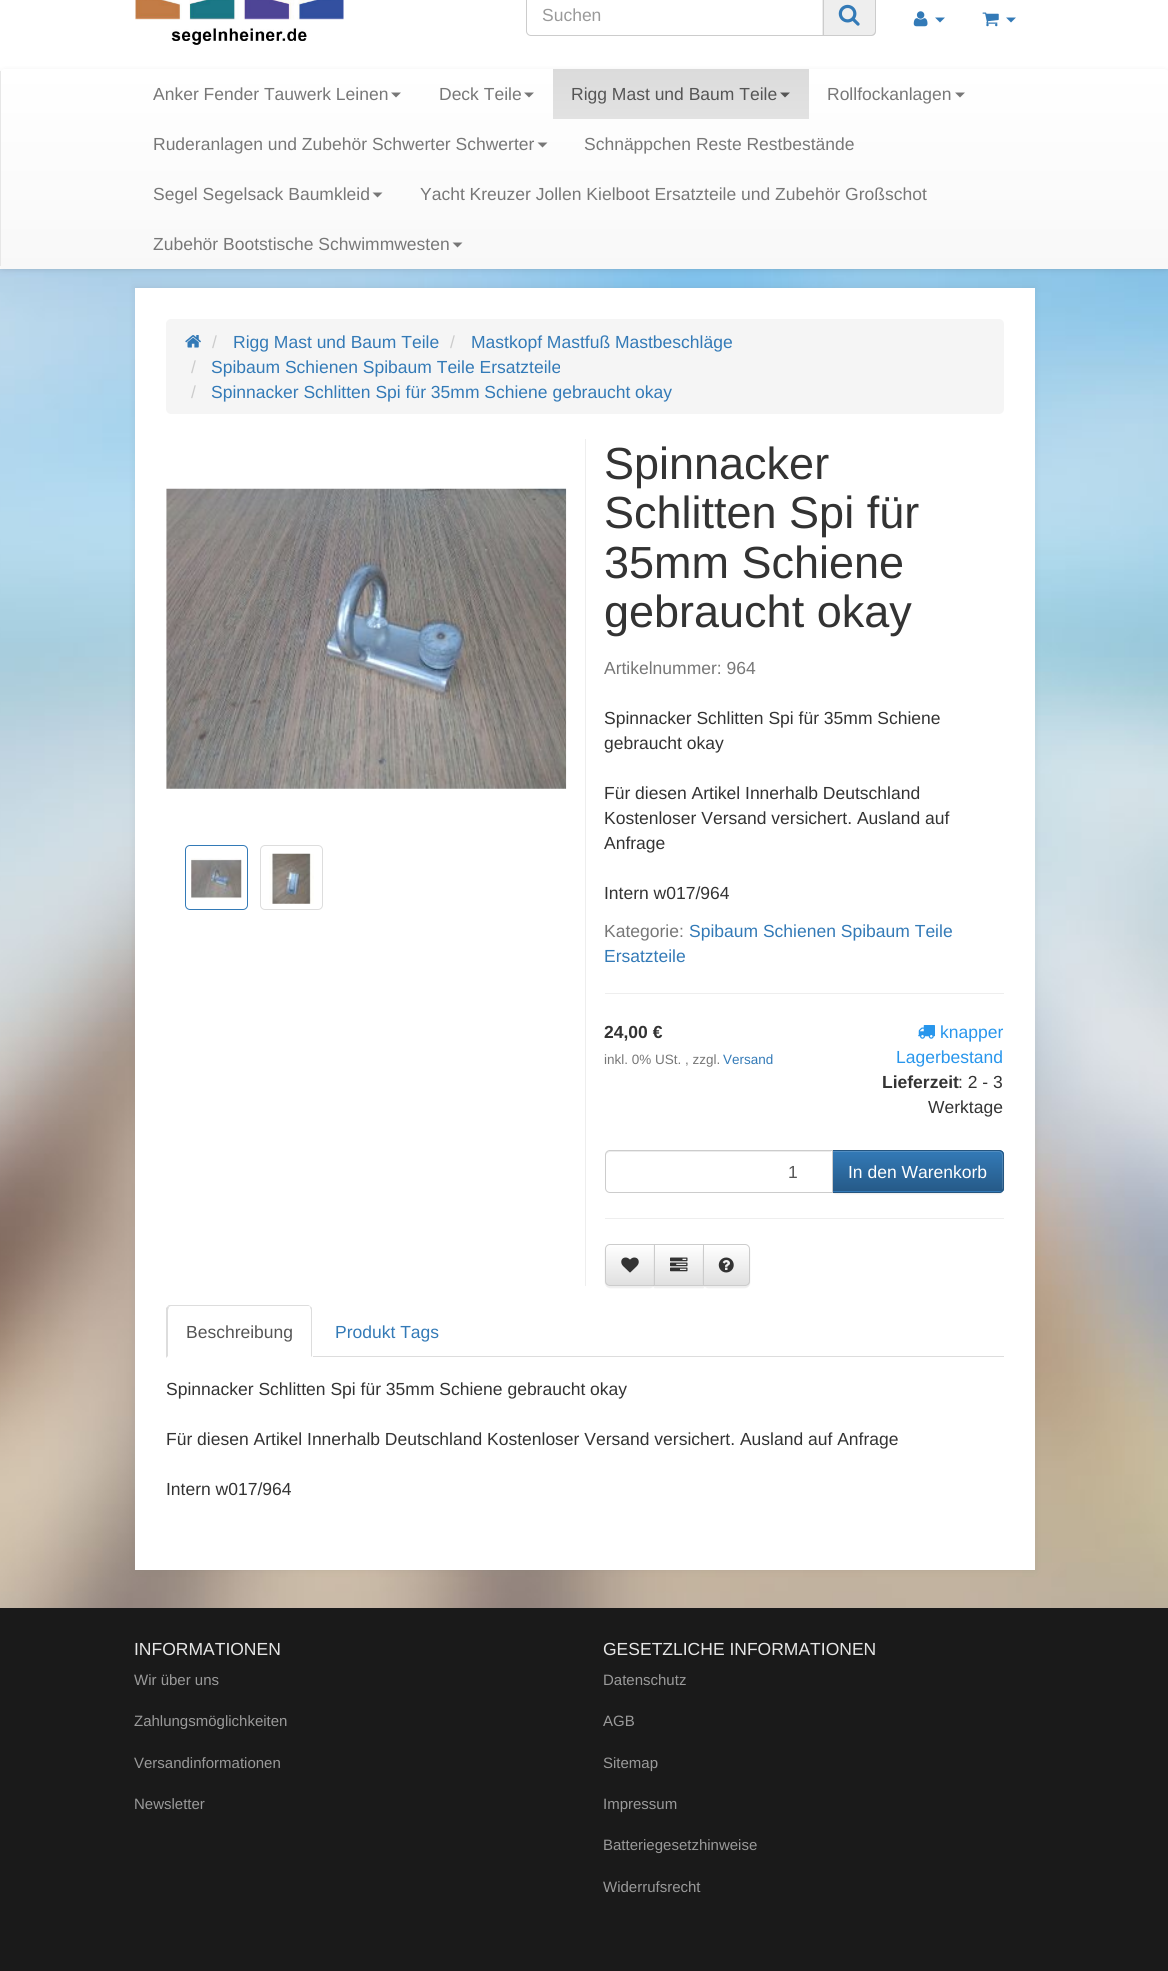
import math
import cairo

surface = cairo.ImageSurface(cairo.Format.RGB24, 1168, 1971)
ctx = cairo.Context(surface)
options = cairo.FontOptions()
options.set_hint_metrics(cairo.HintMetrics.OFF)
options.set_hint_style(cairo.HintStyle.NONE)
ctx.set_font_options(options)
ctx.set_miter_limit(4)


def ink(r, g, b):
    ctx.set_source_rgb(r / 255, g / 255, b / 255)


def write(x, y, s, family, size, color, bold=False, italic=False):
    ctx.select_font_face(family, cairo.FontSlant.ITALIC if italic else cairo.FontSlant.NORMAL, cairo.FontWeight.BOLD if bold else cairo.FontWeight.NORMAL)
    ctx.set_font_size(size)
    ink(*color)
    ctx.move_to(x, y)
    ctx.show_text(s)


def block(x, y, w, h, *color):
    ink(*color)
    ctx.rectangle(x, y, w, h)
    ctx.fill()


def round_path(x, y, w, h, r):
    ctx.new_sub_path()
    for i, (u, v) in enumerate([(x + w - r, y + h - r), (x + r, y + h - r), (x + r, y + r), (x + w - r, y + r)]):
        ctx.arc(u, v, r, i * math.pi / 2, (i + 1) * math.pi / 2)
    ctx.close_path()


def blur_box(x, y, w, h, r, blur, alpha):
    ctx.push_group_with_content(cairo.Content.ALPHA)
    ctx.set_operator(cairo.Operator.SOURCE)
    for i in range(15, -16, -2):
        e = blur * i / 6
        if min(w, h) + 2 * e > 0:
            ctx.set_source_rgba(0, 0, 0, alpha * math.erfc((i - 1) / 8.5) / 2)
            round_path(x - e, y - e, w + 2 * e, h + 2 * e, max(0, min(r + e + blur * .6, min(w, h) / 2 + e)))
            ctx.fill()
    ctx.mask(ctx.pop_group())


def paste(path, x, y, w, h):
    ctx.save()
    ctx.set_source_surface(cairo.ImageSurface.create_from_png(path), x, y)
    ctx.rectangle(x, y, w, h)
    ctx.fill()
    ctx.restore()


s1 = dict(family="Liberation Sans", size=17.5, color=(154, 154, 154))
s2 = dict(family="Liberation Sans", size=17.5, color=(119, 119, 119))
s3 = dict(family="Liberation Sans", size=17.5, color=(85, 85, 85))
s4 = dict(family="Liberation Sans", size=17.5, color=(204, 204, 204))
s5 = dict(family="Liberation Sans", size=17.5, color=(51, 122, 183))
s6 = dict(family="Liberation Sans", size=45, color=(51, 51, 51))
s7 = dict(family="Liberation Sans", size=17.5, color=(51, 51, 51))
s8 = dict(family="Liberation Sans", size=17.5, color=(51, 51, 51), bold=True)
s9 = dict(family="Liberation Sans", size=13.5, color=(119, 119, 119))
s10 = dict(family="Liberation Sans", size=13.5, color=(51, 122, 183))
s11 = dict(family="Liberation Sans", size=17.5, color=(40, 150, 236))
s12 = dict(family="Liberation Sans", size=17.5, color=(255, 255, 255))
s13 = dict(family="Liberation Sans", size=17.5, color=(230, 230, 230))
s14 = dict(family="Liberation Sans", size=15, color=(154, 154, 154))

ink(255, 255, 255)
ctx.paint()
paste("pic13.png", 0, 269, 1168, 1339)
ink(106, 106, 106)
blur_box(-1, -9, 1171, 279, 0, 3, 0.1)
block(0, 0, 1168, 269, 255, 255, 255)
paste("pic1.png", 135, 0, 209, 45)
ink(236, 236, 236)
ctx.new_path()
ctx.move_to(531, -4)
ctx.line_to(822, -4)
ctx.line_to(822, 35)
ctx.line_to(823, 35)
ctx.line_to(823, -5)
ctx.line_to(532, -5)
ctx.curve_to(529, -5, 528, -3, 528, 0)
ctx.curve_to(528, -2, 529, -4, 531, -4)
ctx.close_path()
ctx.fill()
ctx.new_path()
ctx.move_to(531, -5.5)
ctx.line_to(823.5, -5.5)
ctx.line_to(823.5, 35.5)
ctx.line_to(531, 35.5)
ctx.curve_to(528.5, 35.5, 526.5, 33.5, 526.5, 31)
ctx.line_to(526.5, -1)
ctx.curve_to(526.5, -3.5, 528.5, -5.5, 531, -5.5)
ctx.close_path()
ink(204, 204, 204)
ctx.set_line_width(1)
ctx.stroke()
write(542, 21, "Suchen", **s1)
ink(238, 238, 238)
ctx.new_path()
ctx.move_to(824, -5)
ctx.line_to(871, -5)
ctx.curve_to(874, -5, 876, -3, 876, 0)
ctx.line_to(876, 31)
ctx.curve_to(876, 34, 874, 36, 871, 36)
ctx.line_to(824, 36)
ctx.close_path()
ctx.fill()
ink(204, 204, 204)
ctx.set_fill_rule(cairo.FillRule.EVEN_ODD)
ctx.new_path()
ctx.move_to(824, -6)
ctx.line_to(871, -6)
ctx.curve_to(874, -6, 876, -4, 876, -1)
ctx.line_to(876, 31)
ctx.curve_to(876, 34, 874, 36, 871, 36)
ctx.line_to(824, 36)
ctx.close_path()
ctx.move_to(824, -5)
ctx.line_to(871, -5)
ctx.curve_to(873, -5, 875, -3, 875, -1)
ctx.line_to(875, 31)
ctx.curve_to(875, 33, 873, 35, 871, 35)
ctx.line_to(824, 35)
ctx.close_path()
ctx.fill()
paste("pic2.png", 838, 4, 22, 22)
paste("pic3.png", 913, 11, 15, 16)
ink(51, 122, 183)
ctx.set_fill_rule(cairo.FillRule.WINDING)
ctx.new_path()
ctx.move_to(935, 17.5)
ctx.line_to(945, 17.5)
ctx.line_to(940, 22.5)
ctx.close_path()
ctx.fill()
paste("pic4.png", 982, 12, 17, 15)
ctx.new_path()
ctx.move_to(1006, 17.5)
ctx.line_to(1016, 17.5)
ctx.line_to(1011, 22.5)
ctx.close_path()
ctx.fill()
ink(0, 0, 0)
blur_box(0, 70, 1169, 200, 5, 3, 0.07)
gradient = cairo.LinearGradient(584, 69, 584, 269)
gradient.add_color_stop_rgba(0, 1, 1, 1, 1)
gradient.add_color_stop_rgba(1, 0.973, 0.973, 0.973, 1)
ctx.set_source(gradient)
round_path(0, 69, 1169, 200, 5)
ctx.fill()
block(0, 71, 1, 195, 231, 231, 231)
write(153, 100, "Anker Fender Tauwerk Leinen", **s2)
ctx.new_path()
ctx.move_to(391, 92.5)
ctx.line_to(401, 92.5)
ctx.line_to(396, 97.5)
ctx.close_path()
ctx.fill()
write(439, 100, "Deck Teile", **s2)
ctx.new_path()
ctx.move_to(524, 92.5)
ctx.line_to(534, 92.5)
ctx.line_to(529, 97.5)
ctx.close_path()
ctx.fill()
gradient = cairo.LinearGradient(681, 69, 681, 119)
gradient.add_color_stop_rgba(0, 0.859, 0.859, 0.859, 1)
gradient.add_color_stop_rgba(1, 0.886, 0.886, 0.886, 1)
ctx.set_source(gradient)
ctx.rectangle(553, 69, 256, 50)
ctx.fill()
write(571, 100, "Rigg Mast und Baum Teile", **s3)
ctx.new_path()
ctx.move_to(780, 92.5)
ctx.line_to(790, 92.5)
ctx.line_to(785, 97.5)
ctx.close_path()
ctx.fill()
write(827, 100, "Rollfockanlagen", **s2)
ctx.new_path()
ctx.move_to(955, 92.5)
ctx.line_to(965, 92.5)
ctx.line_to(960, 97.5)
ctx.close_path()
ctx.fill()
write(153, 150, "Ruderanlagen und Zubehör Schwerter Schwerter", **s2)
ctx.new_path()
ctx.move_to(537.5, 142.5)
ctx.line_to(547.5, 142.5)
ctx.line_to(542.5, 147.5)
ctx.close_path()
ctx.fill()
write(584, 150, "Schnäppchen Reste Restbestände", **s2)
write(153, 200, "Segel Segelsack Baumkleid", **s2)
ctx.new_path()
ctx.move_to(372.5, 192.5)
ctx.line_to(382.5, 192.5)
ctx.line_to(377.5, 197.5)
ctx.close_path()
ctx.fill()
write(420, 200, "Yacht Kreuzer Jollen Kielboot Ersatzteile und Zubehör Großschot", **s2)
write(153, 250, "Zubehör Bootstische Schwimmwesten", **s2)
ctx.new_path()
ctx.move_to(452.5, 242.5)
ctx.line_to(462.5, 242.5)
ctx.line_to(457.5, 247.5)
ctx.close_path()
ctx.fill()
ink(106, 106, 106)
blur_box(134, 286, 902, 1285, 0, 3, 0.1)
block(135, 288, 900, 1282, 255, 255, 255)
ink(245, 245, 245)
round_path(166, 319, 838, 95, 5)
ctx.fill()
paste("pic5.png", 185, 335, 16, 13)
write(212, 348, "/", **s4)
write(233, 348, "Rigg Mast und Baum Teile", **s5)
write(450, 348, "/", **s4)
write(471, 348, "Mastkopf Mastfuß Mastbeschläge", **s5)
write(191, 373, "/", **s4)
write(211, 373, "Spibaum Schienen Spibaum Teile Ersatzteile", **s5)
write(191, 398, "/", **s4)
write(211, 398, "Spinnacker Schlitten Spi für 35mm Schiene gebraucht okay", **s5)
paste("pic6.png", 166, 487, 401, 302)
round_path(185.5, 845.5, 62, 64, 4.5)
ctx.stroke()
paste("pic7.png", 191, 858, 51, 41)
round_path(260.5, 845.5, 62, 64, 4.5)
ink(221, 221, 221)
ctx.stroke()
paste("pic8.png", 269, 853, 45, 51)
block(585, 439, 1, 847, 238, 238, 238)
write(604, 479, "Spinnacker", **s6)
write(604, 528, "Schlitten Spi für", **s6)
write(604, 578, "35mm Schiene", **s6)
write(604, 627, "gebraucht okay", **s6)
write(604, 674, "Artikelnummer: 964", **s2)
write(604, 724, "Spinnacker Schlitten Spi für 35mm Schiene", **s7)
write(604, 749, "gebraucht okay", **s7)
write(604, 799, "Für diesen Artikel Innerhalb Deutschland", **s7)
write(604, 824, "Kostenloser Versand versichert. Ausland auf", **s7)
write(604, 849, "Anfrage", **s7)
write(604, 899, "Intern w017/964", **s7)
write(604, 937, "Kategorie:", **s2)
write(689, 937, "Spibaum Schienen Spibaum Teile", **s5)
write(604, 962, "Ersatzteile", **s5)
block(605, 993, 399, 1, 238, 238, 238)
write(604, 1038, "24,00 €", **s8)
write(604, 1064, "inkl. 0% USt. , zzgl.", **s9)
write(723, 1064, "Versand", **s10)
paste("pic9.png", 918, 1025, 17, 14)
write(940, 1038, "knapper", **s11)
write(896, 1063, "Lagerbestand", **s11)
write(882, 1088, "Lieferzeit", **s8)
write(958, 1088, ": 2 - 3", **s7)
write(928, 1113, "Werktage", **s7)
ink(0, 0, 0)
blur_box(831, 1151, 173, 43, 5, 0.5, 0.07)
ink(51, 122, 183)
ctx.new_path()
ctx.move_to(831, 1150)
ctx.line_to(999, 1150)
ctx.curve_to(1002, 1150, 1004, 1152, 1004, 1155)
ctx.line_to(1004, 1188)
ctx.curve_to(1004, 1191, 1002, 1193, 999, 1193)
ctx.line_to(831, 1193)
ctx.close_path()
ctx.fill()
ctx.save()
ctx.new_path()
ctx.move_to(831, 1150)
ctx.line_to(999, 1150)
ctx.curve_to(1002, 1150, 1004, 1152, 1004, 1155)
ctx.line_to(1004, 1188)
ctx.curve_to(1004, 1191, 1002, 1193, 999, 1193)
ctx.line_to(831, 1193)
ctx.close_path()
ctx.clip()
gradient = cairo.LinearGradient(918, 1151, 918, 1191)
gradient.add_color_stop_rgba(0, 0.2, 0.478, 0.718, 1)
gradient.add_color_stop_rgba(1, 0.149, 0.353, 0.533, 1)
ctx.set_source(gradient)
ctx.rectangle(833, 1151, 171, 40)
ctx.fill()
ctx.restore()
ctx.set_source_rgba(1, 1, 1, 0.15)
ctx.new_path()
ctx.move_to(833, 1151)
ctx.line_to(833, 1152)
ctx.line_to(999, 1152)
ctx.curve_to(1001, 1152, 1002, 1154, 1002, 1156)
ctx.line_to(1002, 1190)
ctx.curve_to(1003, 1189, 1003, 1188, 1003, 1187)
ctx.line_to(1003, 1155)
ctx.curve_to(1003, 1153, 1001, 1151, 999, 1151)
ctx.close_path()
ctx.fill()
ctx.new_path()
ctx.move_to(831.5, 1150.5)
ctx.line_to(999, 1150.5)
ctx.curve_to(1001.5, 1150.5, 1003.5, 1152.5, 1003.5, 1155)
ctx.line_to(1003.5, 1188)
ctx.curve_to(1003.5, 1190.5, 1001.5, 1192.5, 999, 1192.5)
ctx.line_to(831.5, 1192.5)
ctx.close_path()
ink(36, 85, 128)
ctx.stroke()
ink(255, 255, 255)
ctx.new_path()
ctx.move_to(610, 1150)
ctx.line_to(833, 1150)
ctx.line_to(833, 1193)
ctx.line_to(610, 1193)
ctx.curve_to(607, 1193, 605, 1191, 605, 1188)
ctx.line_to(605, 1155)
ctx.curve_to(605, 1152, 607, 1150, 610, 1150)
ctx.close_path()
ctx.fill()
ink(236, 236, 236)
ctx.new_path()
ctx.move_to(610, 1152)
ctx.line_to(831, 1152)
ctx.line_to(831, 1151)
ctx.line_to(610, 1151)
ctx.curve_to(607, 1151, 606, 1153, 606, 1156)
ctx.curve_to(606, 1154, 608, 1152, 610, 1152)
ctx.close_path()
ctx.fill()
ctx.new_path()
ctx.move_to(610, 1150.5)
ctx.line_to(832.5, 1150.5)
ctx.line_to(832.5, 1192.5)
ctx.line_to(610, 1192.5)
ctx.curve_to(607.5, 1192.5, 605.5, 1190.5, 605.5, 1188)
ctx.line_to(605.5, 1155)
ctx.curve_to(605.5, 1152.5, 607.5, 1150.5, 610, 1150.5)
ctx.close_path()
ink(204, 204, 204)
ctx.stroke()
write(788, 1178, "1", **s3)
write(848, 1178, "In den Warenkorb", **s12)
block(605, 1218, 399, 1, 238, 238, 238)
ink(0, 0, 0)
blur_box(605, 1245, 50, 43, 5, 0.5, 0.07)
ctx.save()
ctx.new_path()
ctx.move_to(610, 1244)
ctx.line_to(655, 1244)
ctx.line_to(655, 1286)
ctx.line_to(610, 1286)
ctx.curve_to(607, 1286, 605, 1284, 605, 1281)
ctx.line_to(605, 1249)
ctx.curve_to(605, 1246, 607, 1244, 610, 1244)
ctx.close_path()
ctx.clip()
gradient = cairo.LinearGradient(630, 1245, 630, 1285)
gradient.add_color_stop_rgba(0, 1, 1, 1, 1)
gradient.add_color_stop_rgba(1, 0.878, 0.878, 0.878, 1)
ctx.set_source(gradient)
ctx.rectangle(605, 1245, 49, 40)
ctx.fill()
ctx.restore()
ctx.new_path()
ctx.move_to(610, 1244.5)
ctx.line_to(654.5, 1244.5)
ctx.line_to(654.5, 1285.5)
ctx.line_to(610, 1285.5)
ctx.curve_to(607.5, 1285.5, 605.5, 1283.5, 605.5, 1281)
ctx.line_to(605.5, 1249)
ctx.curve_to(605.5, 1246.5, 607.5, 1244.5, 610, 1244.5)
ctx.close_path()
ink(204, 204, 204)
ctx.stroke()
paste("pic10.png", 621, 1257, 18, 16)
ink(0, 0, 0)
blur_box(654, 1245, 50, 43, 0, 0.5, 0.07)
gradient = cairo.LinearGradient(679, 1245, 679, 1285)
gradient.add_color_stop_rgba(0, 1, 1, 1, 1)
gradient.add_color_stop_rgba(1, 0.878, 0.878, 0.878, 1)
ctx.set_source(gradient)
ctx.rectangle(655, 1245, 48, 40)
ctx.fill()
ctx.rectangle(654.5, 1244.5, 49, 41)
ink(204, 204, 204)
ctx.stroke()
paste("pic11.png", 670, 1257, 18, 15)
ink(0, 0, 0)
blur_box(703, 1245, 47, 43, 5, 0.5, 0.07)
ctx.save()
ctx.new_path()
ctx.move_to(703, 1244)
ctx.line_to(745, 1244)
ctx.curve_to(748, 1244, 750, 1246, 750, 1249)
ctx.line_to(750, 1281)
ctx.curve_to(750, 1284, 748, 1286, 745, 1286)
ctx.line_to(703, 1286)
ctx.close_path()
ctx.clip()
gradient = cairo.LinearGradient(726, 1245, 726, 1285)
gradient.add_color_stop_rgba(0, 1, 1, 1, 1)
gradient.add_color_stop_rgba(1, 0.878, 0.878, 0.878, 1)
ctx.set_source(gradient)
ctx.rectangle(704, 1245, 46, 40)
ctx.fill()
ctx.restore()
ctx.new_path()
ctx.move_to(703.5, 1244.5)
ctx.line_to(745, 1244.5)
ctx.curve_to(747.5, 1244.5, 749.5, 1246.5, 749.5, 1249)
ctx.line_to(749.5, 1281)
ctx.curve_to(749.5, 1283.5, 747.5, 1285.5, 745, 1285.5)
ctx.line_to(703.5, 1285.5)
ctx.close_path()
ink(204, 204, 204)
ctx.stroke()
paste("pic12.png", 718, 1257, 16, 16)
block(313, 1356, 691, 1, 221, 221, 221)
ctx.new_path()
ctx.move_to(171, 1305)
ctx.curve_to(170, 1305, 168, 1305, 168, 1306)
ctx.line_to(169, 1307)
ctx.curve_to(169, 1307, 170, 1306, 171, 1306)
ctx.line_to(308, 1306)
ctx.curve_to(309, 1306, 310, 1306, 310, 1307)
ctx.line_to(311, 1307)
ctx.curve_to(310, 1306, 309, 1305, 308, 1305)
ctx.close_path()
ctx.fill()
ctx.new_path()
ctx.move_to(311, 1307)
ctx.curve_to(312, 1307, 312, 1309, 312, 1310)
ctx.line_to(312, 1357)
ctx.line_to(311, 1356)
ctx.line_to(311, 1310)
ctx.line_to(310, 1307)
ctx.close_path()
ctx.fill()
ctx.new_path()
ctx.move_to(166, 1358)
ctx.line_to(166, 1308)
ctx.line_to(168, 1306)
ctx.line_to(169, 1307)
ctx.line_to(168, 1310)
ctx.line_to(168, 1356)
ctx.close_path()
ctx.fill()
write(186, 1338, "Beschreibung", **s3)
write(335, 1338, "Produkt Tags", **s5)
write(166, 1395, "Spinnacker Schlitten Spi für 35mm Schiene gebraucht okay", **s7)
write(166, 1445, "Für diesen Artikel Innerhalb Deutschland Kostenloser Versand versichert. Ausland auf Anfrage", **s7)
write(166, 1495, "Intern w017/964", **s7)
block(0, 1608, 1168, 363, 26, 26, 26)
write(134, 1655, "INFORMATIONEN", **s13)
write(134, 1685, "Wir über uns", **s14)
write(134, 1726, "Zahlungsmöglichkeiten", **s14)
write(134, 1768, "Versandinformationen", **s14)
write(134, 1809, "Newsletter", **s14)
write(603, 1655, "GESETZLICHE INFORMATIONEN", **s13)
write(603, 1685, "Datenschutz", **s14)
write(603, 1726, "AGB", **s14)
write(603, 1768, "Sitemap", **s14)
write(603, 1809, "Impressum", **s14)
write(603, 1850, "Batteriegesetzhinweise", **s14)
write(603, 1892, "Widerrufsrecht", **s14)
surface.write_to_png("screenshot.png")
